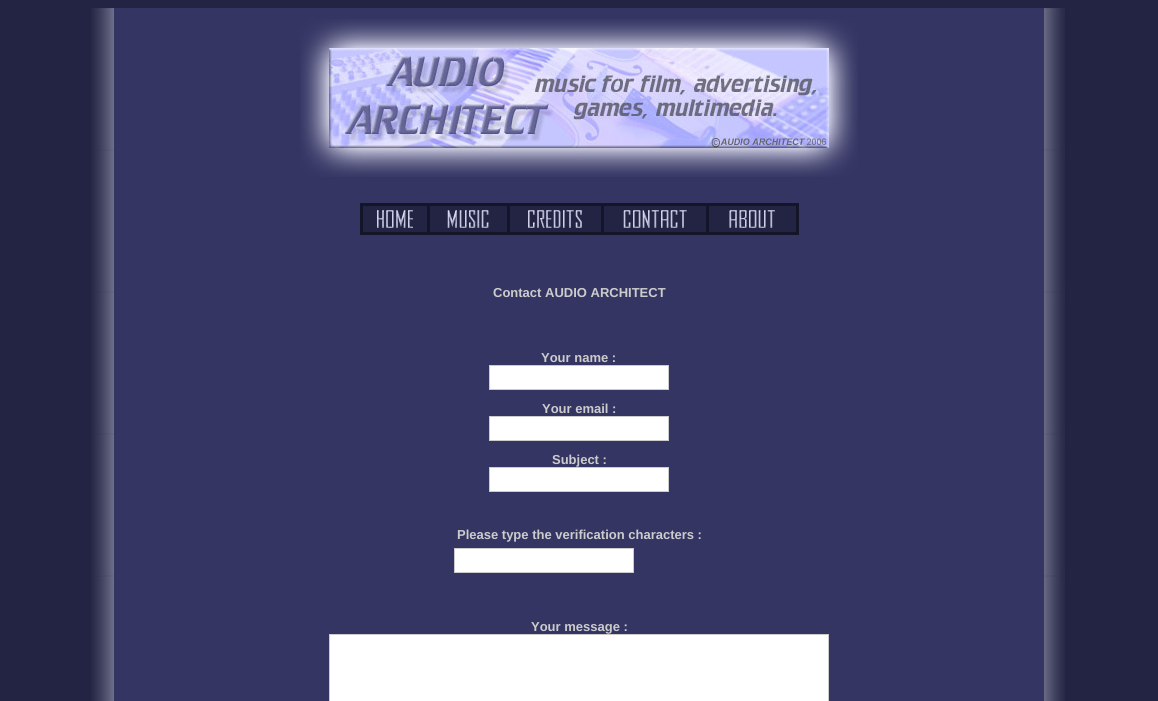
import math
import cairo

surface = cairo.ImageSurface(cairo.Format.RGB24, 1158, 701)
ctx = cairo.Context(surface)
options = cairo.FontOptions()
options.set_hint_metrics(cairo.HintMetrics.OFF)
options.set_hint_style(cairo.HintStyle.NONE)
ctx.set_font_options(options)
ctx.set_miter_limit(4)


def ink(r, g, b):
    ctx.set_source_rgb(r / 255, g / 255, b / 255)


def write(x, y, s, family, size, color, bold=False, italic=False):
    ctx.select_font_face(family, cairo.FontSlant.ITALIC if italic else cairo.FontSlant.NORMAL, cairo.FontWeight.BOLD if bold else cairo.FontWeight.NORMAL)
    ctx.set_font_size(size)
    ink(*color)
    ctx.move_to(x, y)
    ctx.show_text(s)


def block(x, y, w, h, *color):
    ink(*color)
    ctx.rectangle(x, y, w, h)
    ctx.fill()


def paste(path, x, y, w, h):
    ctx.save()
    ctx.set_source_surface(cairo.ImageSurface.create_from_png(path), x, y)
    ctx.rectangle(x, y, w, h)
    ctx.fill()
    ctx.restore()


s1 = dict(family="Liberation Sans", size=13, color=(204, 204, 204), bold=True)

ink(35, 36, 67)
ctx.paint()
paste("pic1.png", 91, 8, 974, 693)
block(114, 8, 930, 693, 52, 53, 99)
paste("pic2.png", 300, 19, 558, 158)
block(360, 203, 439, 32, 20, 21, 41)
block(363, 206, 64, 26, 35, 36, 67)
paste("pic3.png", 377, 210, 36, 18)
block(430, 206, 77, 26, 35, 36, 67)
paste("pic4.png", 447, 210, 42, 18)
block(510, 206, 91, 26, 35, 36, 67)
paste("pic5.png", 528, 210, 54, 18)
block(604, 206, 102, 26, 35, 36, 67)
paste("pic6.png", 623, 210, 64, 18)
block(709, 206, 87, 26, 35, 36, 67)
paste("pic7.png", 729, 210, 46, 18)
write(493, 297, "Contact AUDIO ARCHITECT", **s1)
write(541, 362, "Your name :", **s1)
ink(255, 255, 255)
ctx.rectangle(489.5, 365.5, 179, 24)
ctx.fill_preserve()
ink(204, 204, 204)
ctx.set_line_width(1)
ctx.stroke()
write(542, 413, "Your email :", **s1)
ink(255, 255, 255)
ctx.rectangle(489.5, 416.5, 179, 24)
ctx.fill_preserve()
ink(204, 204, 204)
ctx.stroke()
write(552, 464, "Subject :", **s1)
ink(255, 255, 255)
ctx.rectangle(489.5, 467.5, 179, 24)
ctx.fill_preserve()
ink(204, 204, 204)
ctx.stroke()
write(457, 539, "Please type the verification characters :", **s1)
ink(255, 255, 255)
ctx.rectangle(454.5, 548.5, 179, 24)
ctx.fill_preserve()
ink(204, 204, 204)
ctx.stroke()
write(531, 631, "Your message :", **s1)
ink(255, 255, 255)
ctx.rectangle(329.5, 634.5, 499, 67)
ctx.fill_preserve()
ink(204, 204, 204)
ctx.stroke()
surface.write_to_png("screenshot.png")
